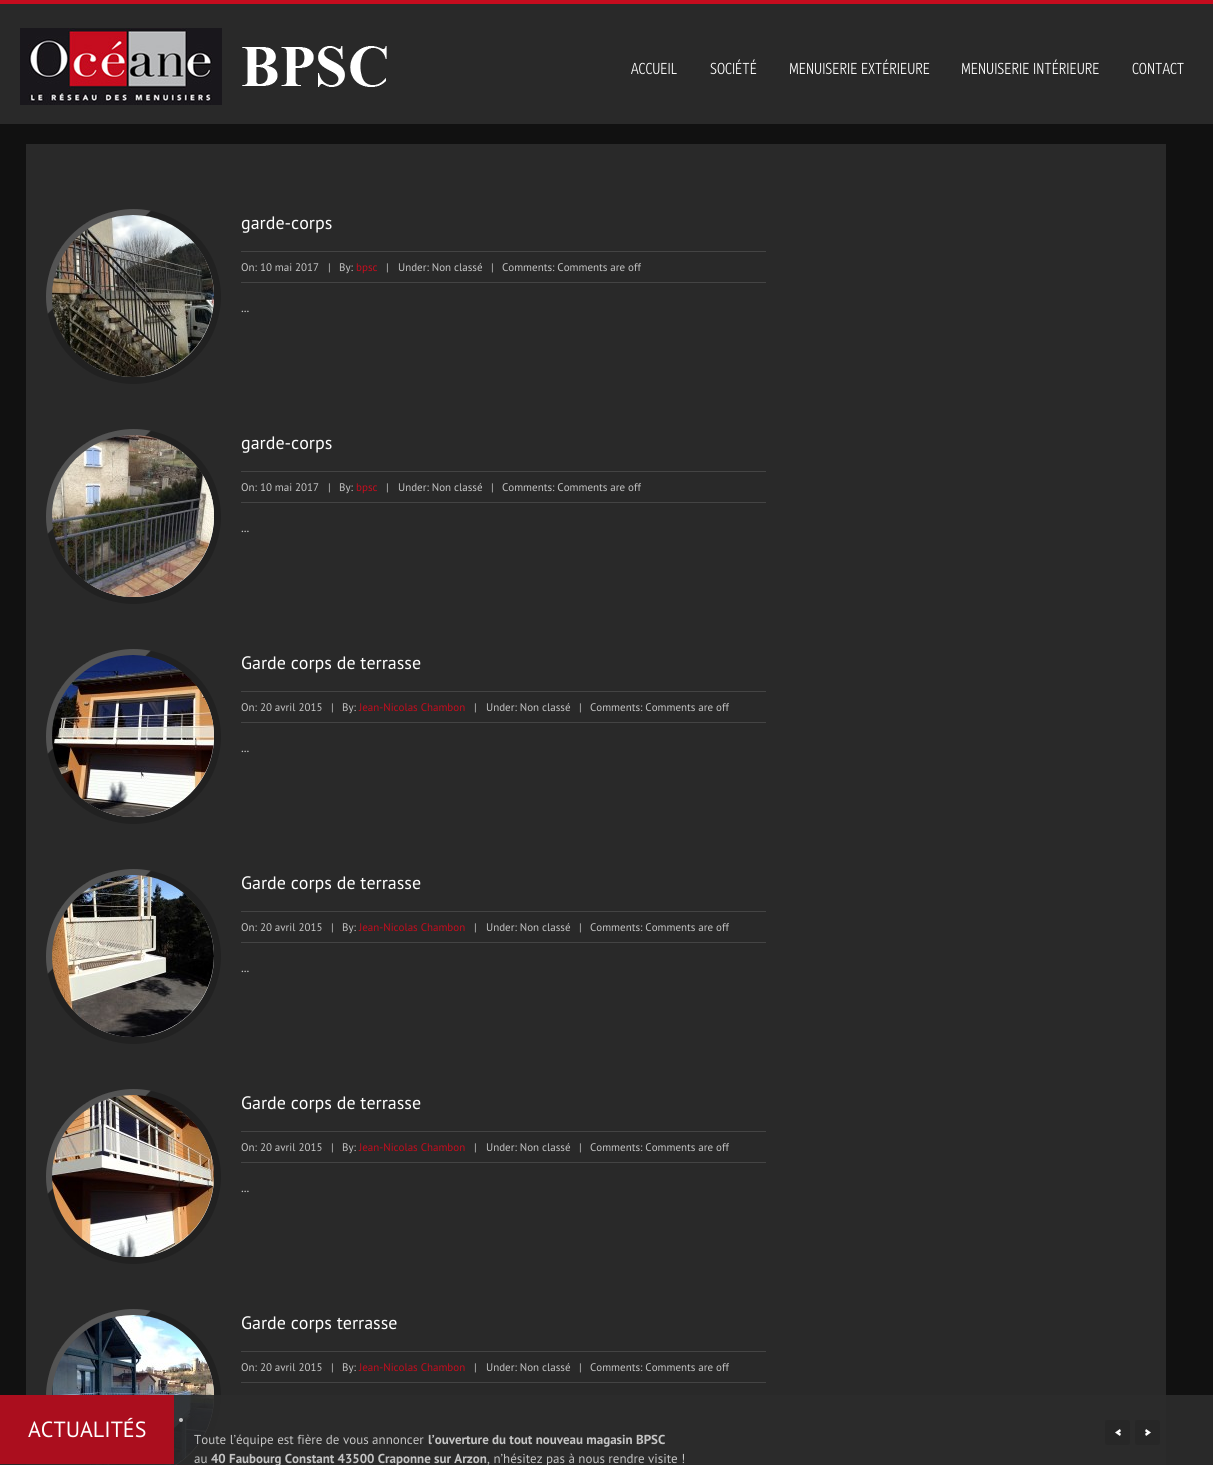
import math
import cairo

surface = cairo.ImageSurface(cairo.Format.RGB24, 1213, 1465)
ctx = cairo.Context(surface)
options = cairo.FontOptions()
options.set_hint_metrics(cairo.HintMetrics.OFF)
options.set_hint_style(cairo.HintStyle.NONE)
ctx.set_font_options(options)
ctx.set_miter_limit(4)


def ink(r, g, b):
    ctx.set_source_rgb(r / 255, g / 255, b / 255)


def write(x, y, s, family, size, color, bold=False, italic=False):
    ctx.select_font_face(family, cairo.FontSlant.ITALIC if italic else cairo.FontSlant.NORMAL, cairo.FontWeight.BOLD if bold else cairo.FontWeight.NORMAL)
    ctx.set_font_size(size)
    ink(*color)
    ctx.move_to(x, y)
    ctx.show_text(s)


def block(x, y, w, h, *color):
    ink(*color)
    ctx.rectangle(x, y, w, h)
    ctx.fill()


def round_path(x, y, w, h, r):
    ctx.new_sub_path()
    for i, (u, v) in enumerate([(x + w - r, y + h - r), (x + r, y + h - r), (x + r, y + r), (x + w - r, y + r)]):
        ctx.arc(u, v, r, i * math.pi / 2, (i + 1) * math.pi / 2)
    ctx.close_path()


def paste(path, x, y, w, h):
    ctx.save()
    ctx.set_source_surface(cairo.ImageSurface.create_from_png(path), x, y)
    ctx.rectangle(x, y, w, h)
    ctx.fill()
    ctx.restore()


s1 = dict(family="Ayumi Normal", size=16, color=(255, 255, 255))
s2 = dict(family="PT Sans", size=18, color=(255, 255, 255))
s3 = dict(family="PT Sans", size=11, color=(197, 197, 197))
s4 = dict(family="PT Sans", size=11, color=(197, 12, 30))
s5 = dict(family="PT Sans", size=13, color=(197, 197, 197))
s6 = dict(family="PT Sans", size=22, color=(255, 255, 255))
s7 = dict(family="PT Sans", size=13, color=(197, 197, 197), bold=True)

ink(17, 17, 17)
ctx.paint()
block(0, 4, 1213, 120, 41, 41, 41)
block(0, 0, 1213, 4, 197, 12, 30)
paste("pic1.png", 20, 28, 202, 77)
paste("pic2.png", 242, 46, 145, 41)
write(631, 74, "ACCUEIL", **s1)
write(710, 74, "SOCIÉTÉ", **s1)
write(789, 74, "MENUISERIE EXTÉRIEURE", **s1)
write(961, 74, "MENUISERIE INTÉRIEURE", **s1)
write(1132, 74, "CONTACT", **s1)
block(26, 144, 1140, 1321, 41, 41, 41)
paste("pic3.png", 46, 209, 175, 175)
paste("pic4.png", 52, 215, 162, 162)
write(241, 229, "garde-corps", **s2)
block(241, 251, 525, 1, 68, 68, 68)
block(241, 282, 525, 1, 68, 68, 68)
write(241, 271, "On: 10 mai 2017", **s3)
write(328, 271, "|", **s3)
write(339, 271, "By:", **s3)
write(356, 271, "bpsc", **s4)
write(386, 271, "|", **s3)
write(398, 271, "Under: Non classé", **s3)
write(491, 271, "|", **s3)
write(502, 271, "Comments: Comments are off", **s3)
write(241, 312, "...", **s5)
paste("pic3.png", 46, 429, 175, 175)
paste("pic5.png", 52, 435, 162, 162)
write(241, 449, "garde-corps", **s2)
block(241, 471, 525, 1, 68, 68, 68)
block(241, 502, 525, 1, 68, 68, 68)
write(241, 491, "On: 10 mai 2017", **s3)
write(328, 491, "|", **s3)
write(339, 491, "By:", **s3)
write(356, 491, "bpsc", **s4)
write(386, 491, "|", **s3)
write(398, 491, "Under: Non classé", **s3)
write(491, 491, "|", **s3)
write(502, 491, "Comments: Comments are off", **s3)
write(241, 532, "...", **s5)
paste("pic3.png", 46, 649, 175, 175)
paste("pic6.png", 52, 655, 162, 162)
write(241, 669, "Garde corps de terrasse", **s2)
block(241, 691, 525, 1, 68, 68, 68)
block(241, 722, 525, 1, 68, 68, 68)
write(241, 711, "On: 20 avril 2015", **s3)
write(331, 711, "|", **s3)
write(342, 711, "By:", **s3)
write(359, 711, "Jean-Nicolas Chambon", **s4)
write(474, 711, "|", **s3)
write(486, 711, "Under: Non classé", **s3)
write(579, 711, "|", **s3)
write(590, 711, "Comments: Comments are off", **s3)
write(241, 752, "...", **s5)
paste("pic3.png", 46, 869, 175, 175)
paste("pic7.png", 52, 875, 162, 162)
write(241, 889, "Garde corps de terrasse", **s2)
block(241, 911, 525, 1, 68, 68, 68)
block(241, 942, 525, 1, 68, 68, 68)
write(241, 931, "On: 20 avril 2015", **s3)
write(331, 931, "|", **s3)
write(342, 931, "By:", **s3)
write(359, 931, "Jean-Nicolas Chambon", **s4)
write(474, 931, "|", **s3)
write(486, 931, "Under: Non classé", **s3)
write(579, 931, "|", **s3)
write(590, 931, "Comments: Comments are off", **s3)
write(241, 972, "...", **s5)
paste("pic3.png", 46, 1089, 175, 175)
paste("pic8.png", 52, 1095, 162, 162)
write(241, 1109, "Garde corps de terrasse", **s2)
block(241, 1131, 525, 1, 68, 68, 68)
block(241, 1162, 525, 1, 68, 68, 68)
write(241, 1151, "On: 20 avril 2015", **s3)
write(331, 1151, "|", **s3)
write(342, 1151, "By:", **s3)
write(359, 1151, "Jean-Nicolas Chambon", **s4)
write(474, 1151, "|", **s3)
write(486, 1151, "Under: Non classé", **s3)
write(579, 1151, "|", **s3)
write(590, 1151, "Comments: Comments are off", **s3)
write(241, 1192, "...", **s5)
paste("pic9.png", 46, 1309, 175, 156)
paste("pic10.png", 52, 1315, 162, 150)
write(241, 1329, "Garde corps terrasse", **s2)
block(241, 1351, 525, 1, 68, 68, 68)
block(241, 1382, 525, 1, 68, 68, 68)
write(241, 1371, "On: 20 avril 2015", **s3)
write(331, 1371, "|", **s3)
write(342, 1371, "By:", **s3)
write(359, 1371, "Jean-Nicolas Chambon", **s4)
write(474, 1371, "|", **s3)
write(486, 1371, "Under: Non classé", **s3)
write(579, 1371, "|", **s3)
write(590, 1371, "Comments: Comments are off", **s3)
ctx.set_source_rgba(0.173, 0.173, 0.173, 0.9)
ctx.rectangle(0, 1395, 1213, 70)
ctx.fill()
block(0, 1395, 174, 69, 171, 14, 30)
write(28, 1437, "ACTUALITÉS", **s6)
ink(197, 197, 197)
ctx.new_path()
ctx.arc(181, 1420, 2, 0, 2 * math.pi)
ctx.fill()
write(194, 1444, "Toute l’équipe est fière de vous annoncer", **s5)
write(428, 1444, "l’ouverture du tout nouveau magasin BPSC", **s7)
write(194, 1463, "au", **s5)
write(211, 1463, "40 Faubourg Constant 43500 Craponne sur Arzon", **s7)
write(487, 1463, ", n’hésitez pas à nous rendre visite !", **s5)
ink(39, 39, 39)
round_path(1105, 1420, 25, 25, 2)
ctx.fill()
paste("pic11.png", 1115, 1429, 6, 7)
round_path(1135, 1420, 25, 25, 2)
ctx.fill()
paste("pic12.png", 1145, 1429, 6, 7)
surface.write_to_png("screenshot.png")
